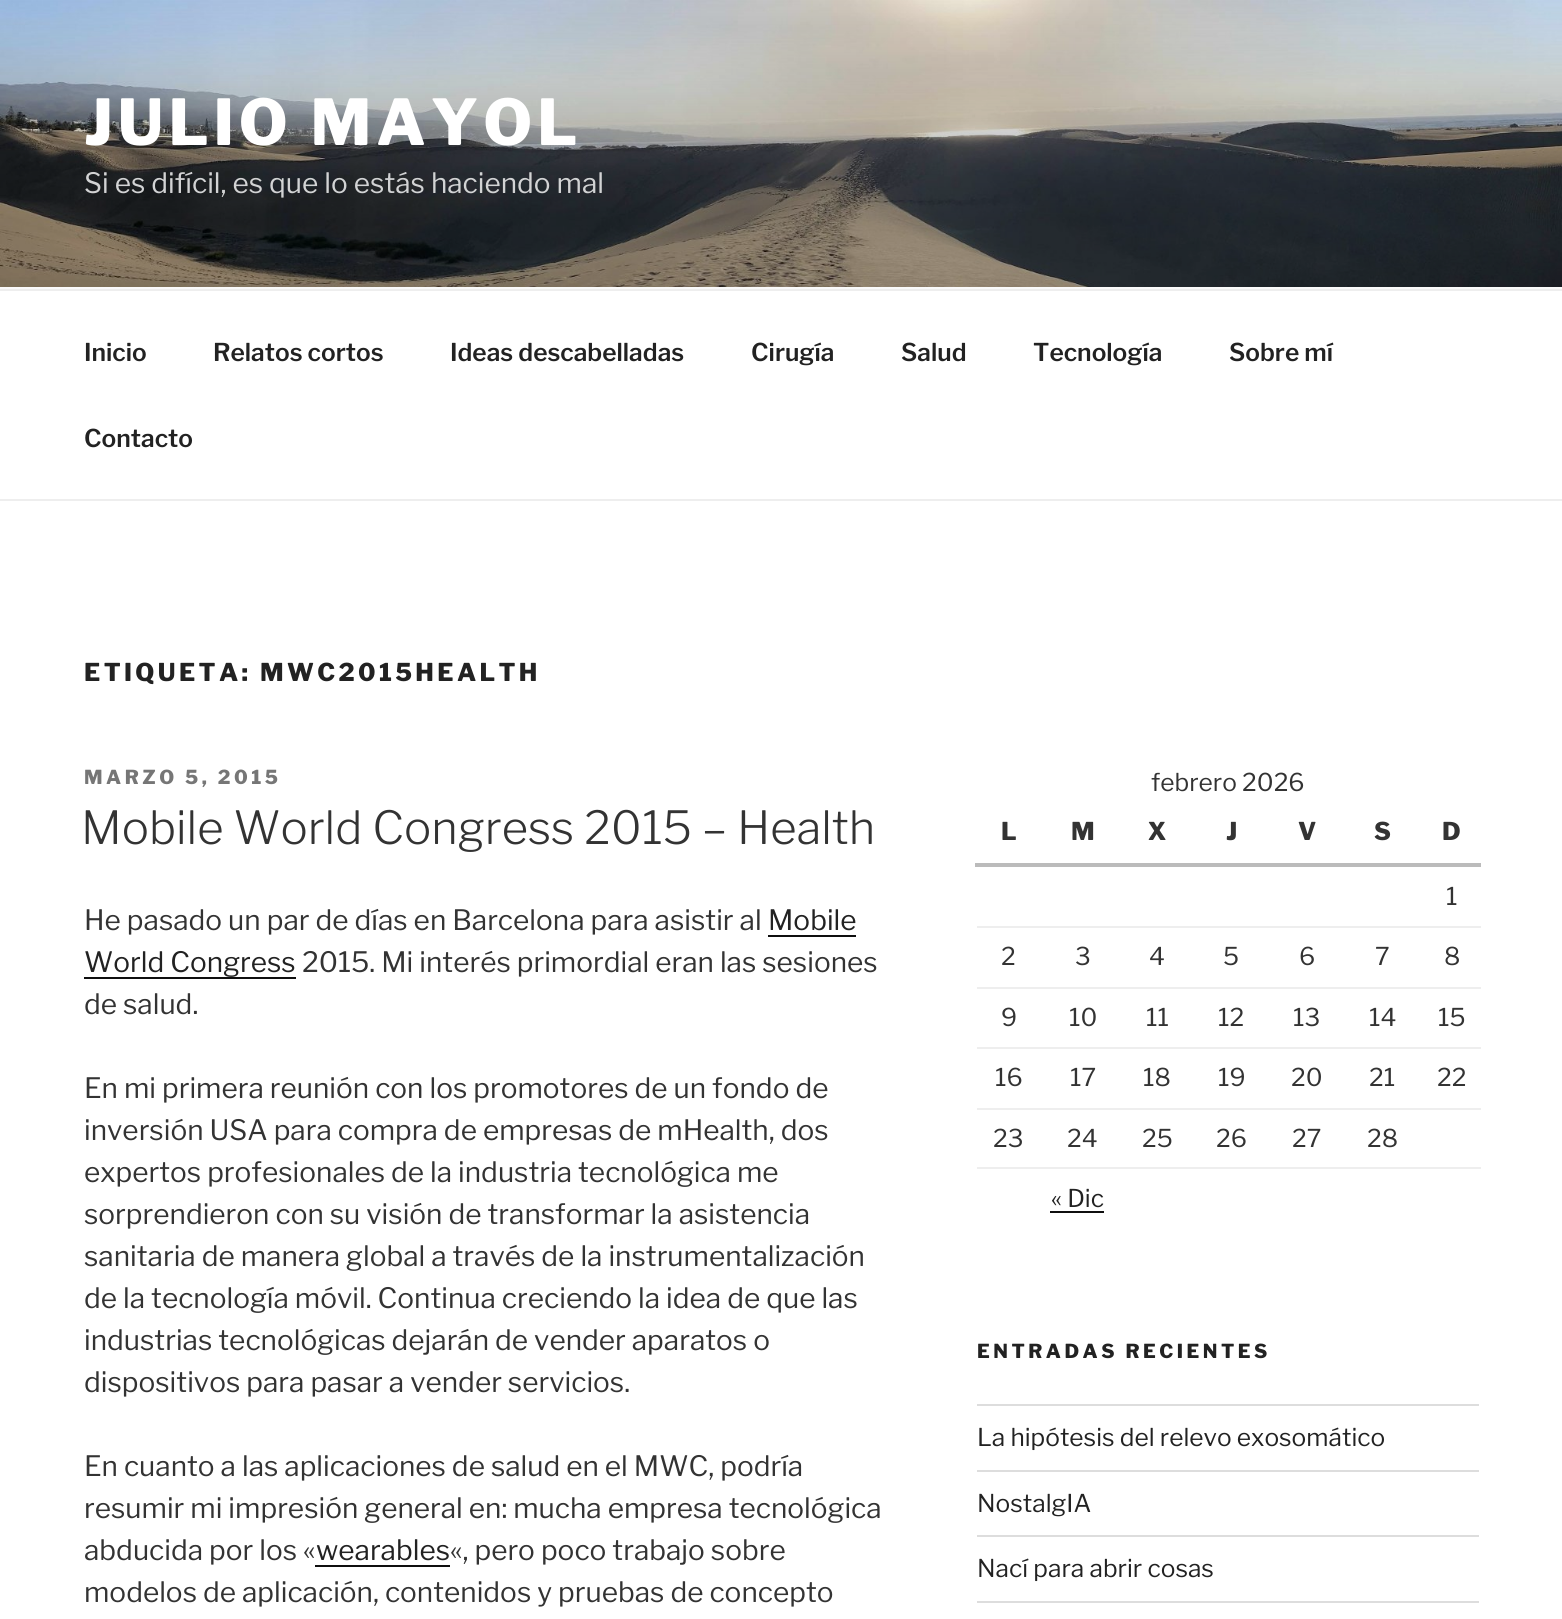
import math
import cairo

surface = cairo.ImageSurface(cairo.Format.RGB24, 1562, 1619)
ctx = cairo.Context(surface)
options = cairo.FontOptions()
options.set_hint_metrics(cairo.HintMetrics.OFF)
options.set_hint_style(cairo.HintStyle.NONE)
ctx.set_font_options(options)
ctx.set_miter_limit(4)


def ink(r, g, b):
    ctx.set_source_rgb(r / 255, g / 255, b / 255)


def write(x, y, s, family, size, color, bold=False, italic=False):
    ctx.select_font_face(family, cairo.FontSlant.ITALIC if italic else cairo.FontSlant.NORMAL, cairo.FontWeight.BOLD if bold else cairo.FontWeight.NORMAL)
    ctx.set_font_size(size)
    ink(*color)
    ctx.move_to(x, y)
    ctx.show_text(s)


def write_spaced(x, y, s, letter, word):
    ctx.move_to(x, y)
    for ch in s:
        ctx.show_text(ch)
        ctx.rel_move_to(letter + word * (ch == ' '), 0)


def block(x, y, w, h, *color):
    ink(*color)
    ctx.rectangle(x, y, w, h)
    ctx.fill()


def paste(path, x, y, w, h):
    ctx.save()
    ctx.set_source_surface(cairo.ImageSurface.create_from_png(path), x, y)
    ctx.rectangle(x, y, w, h)
    ctx.fill()
    ctx.restore()


s1 = dict(family="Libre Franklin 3 Thin", size=28, color=(210, 211, 212))
s2 = dict(family="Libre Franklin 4 Thin", size=24.5, color=(34, 34, 34))
s3 = dict(family="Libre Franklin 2 Thin", size=45.5, color=(51, 51, 51))
s4 = dict(family="Libre Franklin 3 Thin", size=28, color=(51, 51, 51))
s5 = dict(family="Libre Franklin 3 Thin", size=28, color=(34, 34, 34))
s6 = dict(family="Libre Franklin 3 Thin", size=24.5, color=(51, 51, 51))
s7 = dict(family="Libre Franklin Thin", size=24.5, color=(51, 51, 51))
s8 = dict(family="Libre Franklin 3 Thin", size=24.5, color=(34, 34, 34))

ink(255, 255, 255)
ctx.paint()
block(0, 287, 1562, 2, 250, 250, 250)
paste("pic1.png", 0, 0, 1562, 287)
ctx.select_font_face("Libre Franklin Thin")
ctx.set_font_size(63)
ink(255, 255, 255)
write_spaced(84, 145, "JULIO MAYOL", 5, 0)
write(84, 193, "Si es difícil, es que lo estás haciendo mal", **s1)
block(0, 289, 1562, 2, 238, 238, 238)
block(0, 499, 1562, 2, 238, 238, 238)
write(84, 361, "Inicio", **s2)
write(213, 361, "Relatos cortos", **s2)
write(450, 361, "Ideas descabelladas", **s2)
write(751, 361, "Cirugía", **s2)
write(901, 361, "Salud", **s2)
write(1033, 361, "Tecnología", **s2)
write(1229, 361, "Sobre mí", **s2)
write(84, 447, "Contacto", **s2)
ctx.select_font_face("Libre Franklin Thin")
write_spaced(84, 681, "ETIQUETA: MWC2015HEALTH", 3.4, 0)
ctx.set_font_size(19.25)
ink(118, 118, 118)
write_spaced(84, 784, "MARZO 5, 2015", 3.5, 0)
write(81, 844, "Mobile World Congress 2015 – Health", **s3)
write(84, 930, "He pasado un par de días en Barcelona para asistir al", **s4)
write(768, 930, "Mobile", **s5)
block(768, 935, 88, 2, 15, 15, 15)
write(84, 972, "World Congress", **s5)
block(84, 977, 212, 2, 15, 15, 15)
write(302, 972, "2015. Mi interés primordial eran las sesiones", **s4)
write(84, 1014, "de salud.", **s4)
write(84, 1098, "En mi primera reunión con los promotores de un fondo de", **s4)
write(84, 1140, "inversión USA para compra de empresas de mHealth, dos", **s4)
write(84, 1182, "expertos profesionales de la industria tecnológica me", **s4)
write(84, 1224, "sorprendieron con su visión de transformar la asistencia", **s4)
write(84, 1266, "sanitaria de manera global a través de la instrumentalización", **s4)
write(84, 1308, "de la tecnología móvil. Continua creciendo la idea de que las", **s4)
write(84, 1350, "industrias tecnológicas dejarán de vender aparatos o", **s4)
write(84, 1392, "dispositivos para pasar a vender servicios.", **s4)
write(84, 1476, "En cuanto a las aplicaciones de salud en el MWC, podría", **s4)
write(84, 1518, "resumir mi impresión general en: mucha empresa tecnológica", **s4)
write(84, 1560, "abducida por los «", **s4)
write(316, 1560, "wearables", **s5)
block(315, 1565, 135, 2, 15, 15, 15)
write(450, 1560, "«, pero poco trabajo sobre", **s4)
write(84, 1602, "modelos de aplicación, contenidos y pruebas de concepto", **s4)
write(1151, 791, "febrero 2026", **s6)
write(1001, 840, "L", **s7)
write(1071, 840, "M", **s7)
write(1148, 840, "X", **s7)
write(1226, 840, "J", **s7)
write(1298, 840, "V", **s7)
write(1374, 840, "S", **s7)
block(975, 863, 506, 4, 187, 187, 187)
write(1442, 840, "D", **s7)
block(977, 926, 504, 2, 238, 238, 238)
write(1446, 905, "1", **s6)
block(977, 987, 504, 2, 238, 238, 238)
write(1001, 965, "2", **s6)
write(1075, 965, "3", **s6)
write(1149, 965, "4", **s6)
write(1223, 965, "5", **s6)
write(1299, 965, "6", **s6)
write(1375, 965, "7", **s6)
write(1444, 965, "8", **s6)
block(977, 1047, 504, 2, 238, 238, 238)
write(1001, 1026, "9", **s6)
write(1069, 1026, "10", **s6)
write(1146, 1026, "11", **s6)
write(1218, 1026, "12", **s6)
write(1293, 1026, "13", **s6)
write(1369, 1026, "14", **s6)
write(1438, 1026, "15", **s6)
block(977, 1108, 504, 2, 238, 238, 238)
write(995, 1086, "16", **s6)
write(1070, 1086, "17", **s6)
write(1143, 1086, "18", **s6)
write(1218, 1086, "19", **s6)
write(1291, 1086, "20", **s6)
write(1369, 1086, "21", **s6)
write(1437, 1086, "22", **s6)
block(977, 1167, 504, 2, 238, 238, 238)
write(993, 1147, "23", **s6)
write(1067, 1147, "24", **s6)
write(1142, 1147, "25", **s6)
write(1216, 1147, "26", **s6)
write(1292, 1147, "27", **s6)
write(1367, 1147, "28", **s6)
write(1051, 1207, "« Dic", **s8)
block(1050, 1211, 54, 2, 15, 15, 15)
ctx.select_font_face("Libre Franklin Thin")
ctx.set_font_size(19.25)
ink(34, 34, 34)
write_spaced(977, 1358, "ENTRADAS RECIENTES", 3.5, 0)
block(977, 1404, 502, 2, 221, 221, 221)
block(977, 1470, 502, 2, 221, 221, 221)
write(977, 1446, "La hipótesis del relevo exosomático", **s8)
block(977, 1535, 502, 2, 221, 221, 221)
write(977, 1512, "NostalgIA", **s8)
block(977, 1601, 502, 2, 221, 221, 221)
write(977, 1577, "Nací para abrir cosas", **s8)
surface.write_to_png("screenshot.png")
